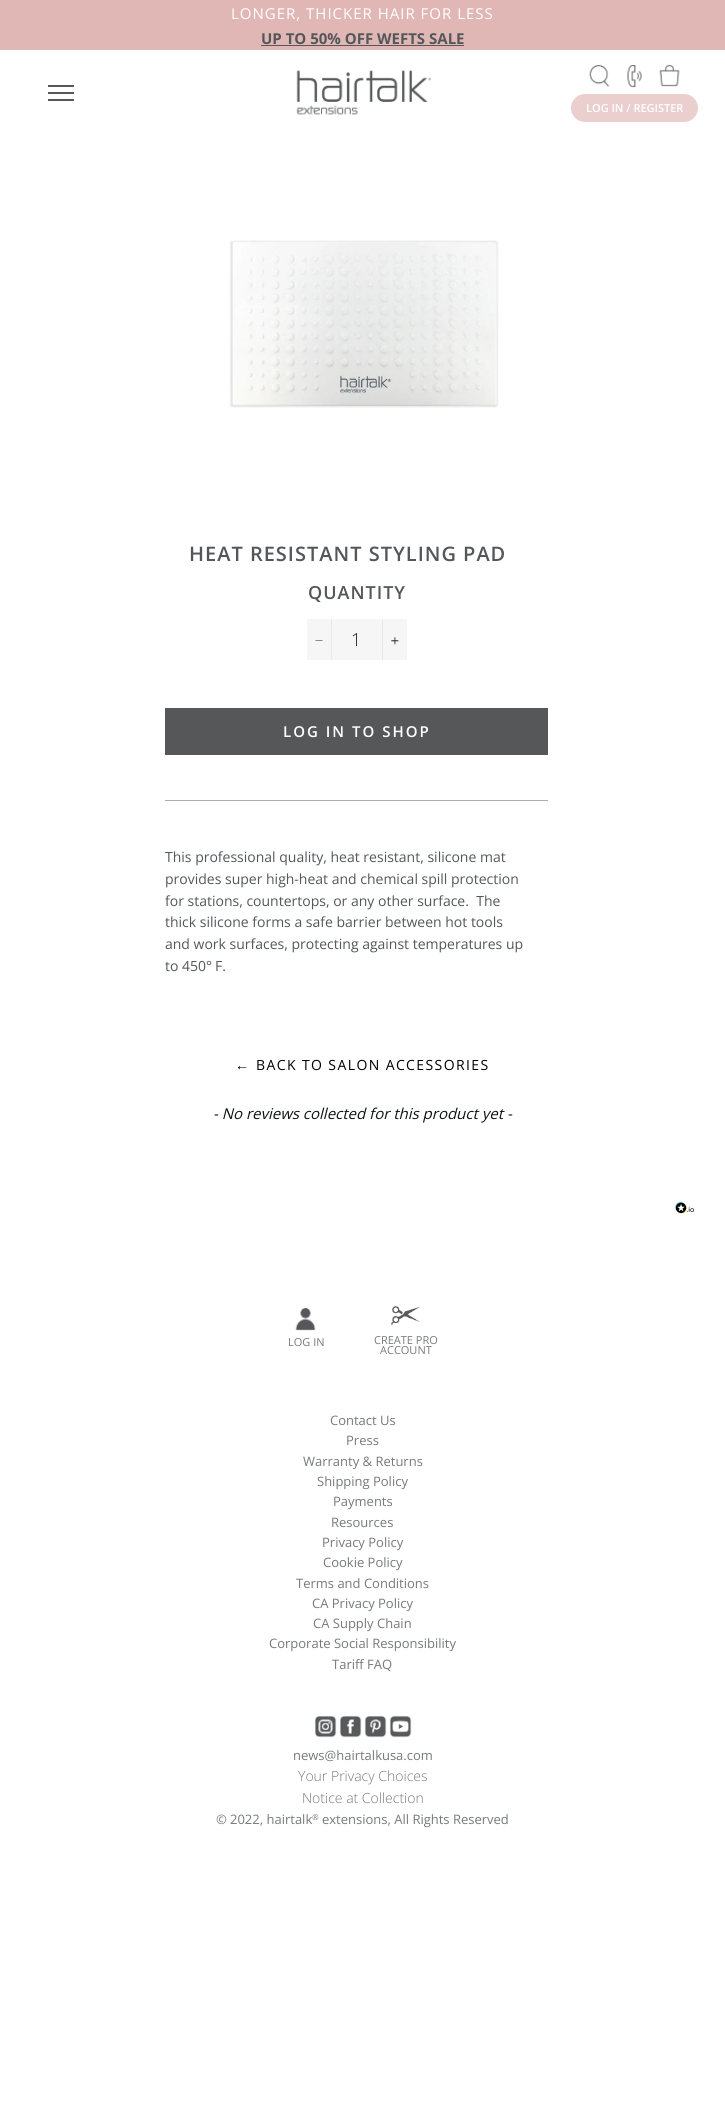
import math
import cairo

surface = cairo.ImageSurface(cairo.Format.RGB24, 725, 2122)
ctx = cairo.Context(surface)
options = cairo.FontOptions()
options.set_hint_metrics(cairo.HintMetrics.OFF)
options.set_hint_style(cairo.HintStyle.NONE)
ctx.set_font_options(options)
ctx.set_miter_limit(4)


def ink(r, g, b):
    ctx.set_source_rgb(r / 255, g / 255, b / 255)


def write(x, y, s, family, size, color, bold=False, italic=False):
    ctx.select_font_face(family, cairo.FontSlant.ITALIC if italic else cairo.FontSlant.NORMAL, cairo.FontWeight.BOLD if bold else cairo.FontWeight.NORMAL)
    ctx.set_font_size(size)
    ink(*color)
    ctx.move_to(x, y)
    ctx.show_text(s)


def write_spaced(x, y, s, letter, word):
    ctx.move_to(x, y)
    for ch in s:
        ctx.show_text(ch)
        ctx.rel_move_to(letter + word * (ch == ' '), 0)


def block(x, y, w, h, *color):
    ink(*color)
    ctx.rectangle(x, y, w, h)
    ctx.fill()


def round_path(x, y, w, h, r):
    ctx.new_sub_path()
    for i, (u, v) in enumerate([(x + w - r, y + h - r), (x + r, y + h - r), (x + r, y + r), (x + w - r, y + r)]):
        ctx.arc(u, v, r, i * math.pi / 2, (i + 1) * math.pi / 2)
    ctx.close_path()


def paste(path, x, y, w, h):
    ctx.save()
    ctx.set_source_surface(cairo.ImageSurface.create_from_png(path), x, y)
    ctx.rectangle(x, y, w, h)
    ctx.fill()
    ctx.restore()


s1 = dict(family="Open Sans", size=15, color=(83, 87, 90), bold=True)
s2 = dict(family="Open Sans SemiBold", size=11, color=(255, 255, 255))
s3 = dict(family="Open Sans Light", size=18, color=(28, 29, 29))
s4 = dict(family="Open Sans", size=14, color=(83, 87, 90))
s5 = dict(family="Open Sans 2", size=14, color=(83, 87, 90))
s6 = dict(family="Open Sans", size=15, color=(14, 19, 17), italic=True)
s7 = dict(family="Open Sans", size=11, color=(119, 121, 122))
s8 = dict(family="Open Sans", size=13, color=(119, 121, 122))
s9 = dict(family="Open Sans Light", size=14, color=(119, 121, 122))
s10 = dict(family="Open Sans 2", size=13, color=(119, 121, 122))
s11 = dict(family="Open Sans 2", size=8, color=(119, 121, 122))

ink(255, 255, 255)
ctx.paint()
block(0, 0, 725, 50, 225, 183, 182)
ctx.select_font_face("Open Sans")
ctx.set_font_size(15)
ink(255, 255, 255)
write_spaced(231, 19, "LONGER, THICKER HAIR FOR LESS", 1, 0)
write(261, 44, "UP TO 50% OFF WEFTS SALE", **s1)
block(261, 45, 203, 1, 85, 87, 89)
block(48, 85, 26, 2, 85, 87, 89)
block(48, 92, 26, 2, 85, 87, 89)
block(48, 99, 26, 2, 85, 87, 89)
paste("pic1.png", 296, 70, 136, 45)
paste("pic2.png", 589, 65, 21, 22)
paste("pic3.png", 627, 65, 15, 23)
paste("pic4.png", 659, 64, 21, 23)
ink(235, 206, 206)
round_path(571, 94, 127, 28, 14)
ctx.fill()
write(586, 112, "LOG IN / REGISTER", **s2)
paste("pic5.png", 229, 240, 270, 168)
ctx.set_font_size(20)
ink(83, 87, 90)
write_spaced(189, 561, "HEAT RESISTANT STYLING PAD", 1, 0)
ctx.set_font_size(18)
write_spaced(308, 599, "QUANTITY", 1, 0)
block(307, 619, 100, 41, 246, 246, 246)
block(331, 619, 1, 41, 233, 233, 233)
ink(28, 29, 29)
ctx.new_path()
ctx.move_to(315.5, 640.5)
ctx.line_to(322.5, 640.5)
ctx.line_to(322.5, 641)
ctx.line_to(315.5, 641)
ctx.close_path()
ctx.fill()
write(351, 646, "1", **s3)
block(382, 619, 1, 41, 233, 233, 233)
paste("pic6.png", 391, 637, 8, 8)
block(165, 708, 383, 47, 85, 87, 89)
ctx.select_font_face("Open Sans SemiBold")
ctx.set_font_size(15)
ink(255, 255, 255)
write_spaced(283, 737, "LOG IN TO SHOP", 2, 0)
block(165, 800, 383, 1, 170, 171, 172)
write(165, 862, "This professional quality, heat resistant, silicone mat", **s4)
write(165, 884, "provides super high-heat and chemical spill protection", **s4)
write(165, 906, "for stations, countertops, or any other surface.  The", **s4)
write(165, 927, "thick silicone forms a safe barrier between hot tools", **s4)
write(165, 949, "and work surfaces, protecting against temperatures up", **s4)
write(165, 971, "to 450", **s4)
write(206, 971, "°", **s5)
write(215, 971, "F.", **s4)
ctx.select_font_face("Liberation Sans")
ink(0, 0, 0)
write_spaced(235, 1070, "←", 1.4, 0)
ctx.select_font_face("Open Sans")
write_spaced(256, 1070, "BACK TO SALON ACCESSORIES", 1.4, 0)
write(213, 1119, "- No reviews collected for this product yet -", **s6)
paste("pic7.png", 675, 1202, 19, 12)
paste("pic8.png", 295, 1308, 21, 23)
write(288, 1346, "LOG IN", **s7)
paste("pic9.png", 391, 1306, 29, 19)
write(374, 1344, "CREATE PRO", **s7)
write(380, 1354, "ACCOUNT", **s7)
write(330, 1425, "Contact Us", **s8)
write(346, 1445, "Press", **s8)
write(303, 1466, "Warranty & Returns", **s8)
write(317, 1486, "Shipping Policy", **s8)
write(333, 1506, "Payments", **s8)
write(331, 1527, "Resources", **s8)
write(322, 1547, "Privacy Policy", **s8)
write(323, 1567, "Cookie Policy", **s8)
write(296, 1588, "Terms and Conditions", **s8)
write(312, 1608, "CA Privacy Policy", **s8)
write(313, 1628, "CA Supply Chain", **s8)
write(269, 1648, "Corporate Social Responsibility", **s8)
write(332, 1669, "Tariff FAQ", **s8)
paste("pic10.png", 314, 1715, 23, 23)
paste("pic11.png", 339, 1715, 23, 23)
paste("pic12.png", 364, 1715, 23, 23)
paste("pic13.png", 389, 1715, 23, 23)
write(293, 1760, "news@hairtalkusa.com", **s8)
write(298, 1781, "Your Privacy Choices", **s9)
write(302, 1803, "Notice at Collection", **s9)
write(216, 1824, "©", **s10)
write(230, 1824, "2022, hairtalk", **s8)
write(312, 1820, "®", **s11)
write(322, 1824, "extensions, All Rights Reserved", **s8)
surface.write_to_png("screenshot.png")
